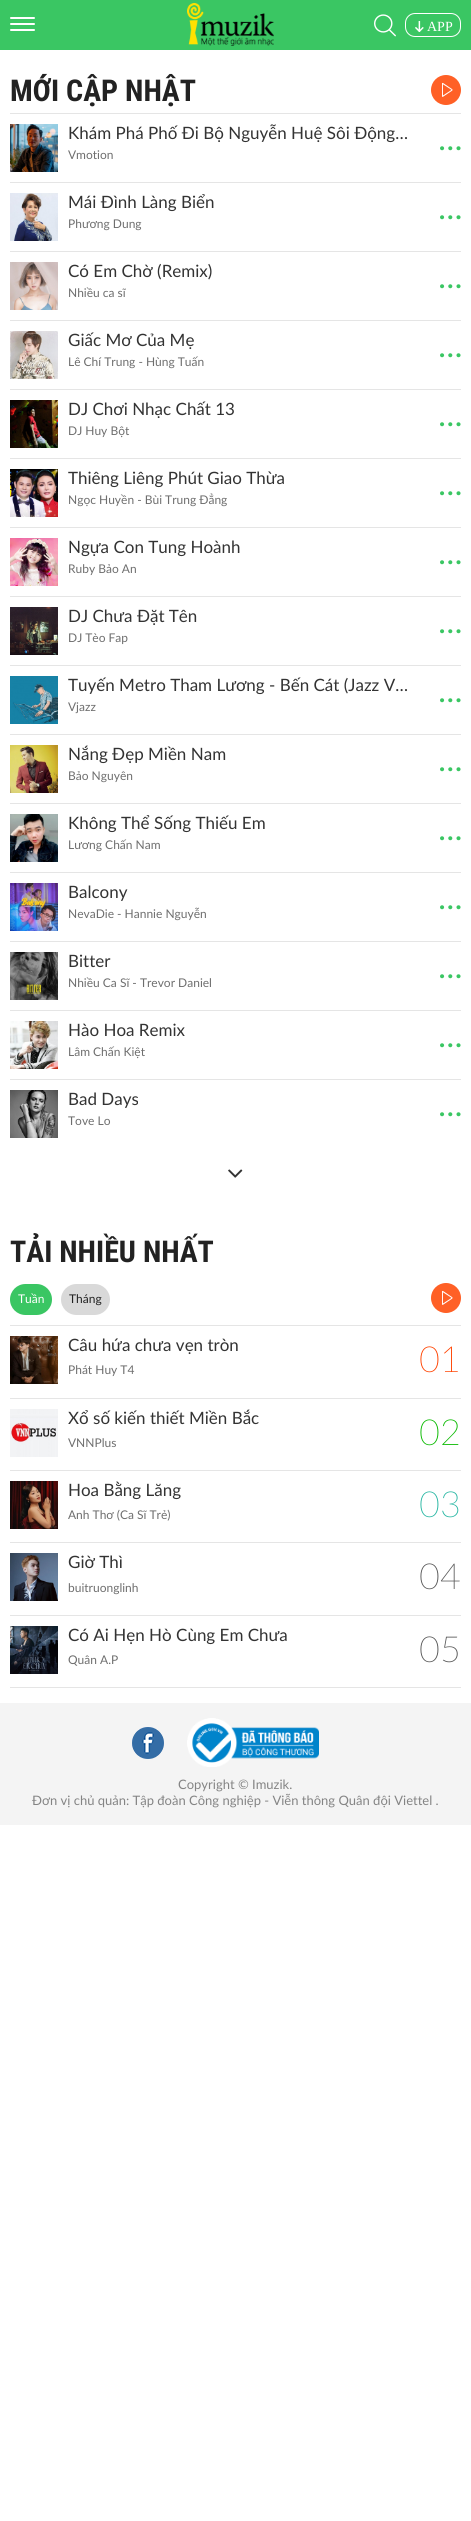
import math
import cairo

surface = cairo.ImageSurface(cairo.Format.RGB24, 471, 2521)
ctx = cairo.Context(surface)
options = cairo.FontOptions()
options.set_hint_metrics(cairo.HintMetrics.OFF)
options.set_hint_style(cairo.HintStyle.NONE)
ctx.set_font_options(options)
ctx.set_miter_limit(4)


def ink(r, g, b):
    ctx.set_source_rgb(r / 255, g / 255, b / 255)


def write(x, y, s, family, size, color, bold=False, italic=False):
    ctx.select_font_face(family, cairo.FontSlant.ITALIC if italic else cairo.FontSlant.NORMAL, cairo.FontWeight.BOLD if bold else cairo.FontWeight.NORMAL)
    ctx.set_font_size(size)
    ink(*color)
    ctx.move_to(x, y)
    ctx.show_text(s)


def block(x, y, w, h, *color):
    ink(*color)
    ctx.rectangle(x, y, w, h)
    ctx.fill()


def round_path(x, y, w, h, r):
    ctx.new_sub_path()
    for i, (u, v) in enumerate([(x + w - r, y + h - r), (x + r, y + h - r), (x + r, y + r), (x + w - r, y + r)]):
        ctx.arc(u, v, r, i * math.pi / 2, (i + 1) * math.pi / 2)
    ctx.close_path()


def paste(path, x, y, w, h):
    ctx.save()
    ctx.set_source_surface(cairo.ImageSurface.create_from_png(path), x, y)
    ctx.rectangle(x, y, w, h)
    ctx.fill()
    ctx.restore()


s1 = dict(family="Liberation Serif", size=14, color=(255, 255, 255))
s2 = dict(family="Roboto Condensed", size=30, color=(34, 34, 34), bold=True)
s3 = dict(family="Lato", size=17, color=(51, 51, 51))
s4 = dict(family="Lato", size=12, color=(110, 110, 110))
s5 = dict(family="Lato", size=12, color=(255, 255, 255))
s6 = dict(family="Lato", size=12, color=(34, 34, 34))
s7 = dict(family="Lato Thin", size=36, color=(255, 66, 0))
s8 = dict(family="Lato Thin", size=36, color=(9, 186, 0))
s9 = dict(family="Lato Thin", size=36, color=(40, 183, 163))
s10 = dict(family="Lato Thin", size=36, color=(88, 88, 88))
s11 = dict(family="Lato", size=13, color=(132, 132, 132))

ink(255, 255, 255)
ctx.paint()
block(0, 0, 471, 50, 58, 198, 99)
ink(255, 255, 255)
round_path(10, 17, 25, 2, 1)
ctx.fill()
round_path(10, 23, 25, 2, 1)
ctx.fill()
round_path(10, 29, 25, 2, 1)
ctx.fill()
paste("pic1.png", 187, 3, 87, 43)
paste("pic2.png", 374, 14, 22, 23)
round_path(405.5, 13.5, 55, 23, 9.5)
ctx.set_line_width(1)
ctx.stroke()
paste("pic3.png", 415, 21, 9, 11)
write(427, 31, "APP", **s1)
write(10, 101, "MỚI CẬP NHẬT", **s2)
ink(255, 96, 38)
ctx.new_path()
ctx.arc(446, 90, 15, 0, 2 * math.pi)
ctx.fill()
paste("pic4.png", 442, 82, 11, 15)
block(10, 113, 451, 1, 229, 229, 229)
paste("pic5.png", 10, 124, 48, 48)
write(68, 139, "Khám Phá Phố Đi Bộ Nguyễn Huệ Sôi Động…", **s3)
write(68, 159, "Vmotion", **s4)
paste("pic6.png", 440, 146, 21, 5)
block(10, 182, 451, 1, 229, 229, 229)
paste("pic7.png", 10, 193, 48, 48)
write(68, 208, "Mái Đình Làng Biển", **s3)
write(68, 228, "Phương Dung", **s4)
paste("pic6.png", 440, 215, 21, 5)
block(10, 251, 451, 1, 229, 229, 229)
paste("pic8.png", 10, 262, 48, 48)
write(68, 277, "Có Em Chờ (Remix)", **s3)
write(68, 297, "Nhiều ca sĩ", **s4)
paste("pic6.png", 440, 284, 21, 5)
block(10, 320, 451, 1, 229, 229, 229)
paste("pic9.png", 10, 331, 48, 48)
write(68, 346, "Giấc Mơ Của Mẹ", **s3)
write(68, 366, "Lê Chí Trung - Hùng Tuấn", **s4)
paste("pic6.png", 440, 353, 21, 5)
block(10, 389, 451, 1, 229, 229, 229)
paste("pic10.png", 10, 400, 48, 48)
write(68, 415, "DJ Chơi Nhạc Chất 13", **s3)
write(68, 435, "DJ Huy Bột", **s4)
paste("pic6.png", 440, 422, 21, 5)
block(10, 458, 451, 1, 229, 229, 229)
paste("pic11.png", 10, 469, 48, 48)
write(68, 484, "Thiêng Liêng Phút Giao Thừa", **s3)
write(68, 504, "Ngọc Huyền - Bùi Trung Đẳng", **s4)
paste("pic6.png", 440, 491, 21, 5)
block(10, 527, 451, 1, 229, 229, 229)
paste("pic12.png", 10, 538, 48, 48)
write(68, 553, "Ngựa Con Tung Hoành", **s3)
write(68, 573, "Ruby Bảo An", **s4)
paste("pic6.png", 440, 560, 21, 5)
block(10, 596, 451, 1, 229, 229, 229)
paste("pic13.png", 10, 607, 48, 48)
write(68, 622, "DJ Chưa Đặt Tên", **s3)
write(68, 642, "DJ Tèo Fap", **s4)
paste("pic6.png", 440, 629, 21, 5)
block(10, 665, 451, 1, 229, 229, 229)
paste("pic14.png", 10, 676, 48, 48)
write(68, 691, "Tuyến Metro Tham Lương - Bến Cát (Jazz V…", **s3)
write(68, 711, "Vjazz", **s4)
paste("pic6.png", 440, 698, 21, 5)
block(10, 734, 451, 1, 229, 229, 229)
paste("pic15.png", 10, 745, 48, 48)
write(68, 760, "Nắng Đẹp Miền Nam", **s3)
write(68, 780, "Bảo Nguyên", **s4)
paste("pic6.png", 440, 767, 21, 5)
block(10, 803, 451, 1, 229, 229, 229)
paste("pic16.png", 10, 814, 48, 48)
write(68, 829, "Không Thể Sống Thiếu Em", **s3)
write(68, 849, "Lương Chấn Nam", **s4)
paste("pic6.png", 440, 836, 21, 5)
block(10, 872, 451, 1, 229, 229, 229)
paste("pic17.png", 10, 883, 48, 48)
write(68, 898, "Balcony", **s3)
write(68, 918, "NevaDie - Hannie Nguyễn", **s4)
paste("pic6.png", 440, 905, 21, 5)
block(10, 941, 451, 1, 229, 229, 229)
paste("pic18.png", 10, 952, 48, 48)
write(68, 967, "Bitter", **s3)
write(68, 987, "Nhiều Ca Sĩ - Trevor Daniel", **s4)
paste("pic6.png", 440, 974, 21, 5)
block(10, 1010, 451, 1, 229, 229, 229)
paste("pic19.png", 10, 1021, 48, 48)
write(68, 1036, "Hào Hoa Remix", **s3)
write(68, 1056, "Lâm Chấn Kiệt", **s4)
paste("pic6.png", 440, 1043, 21, 5)
block(10, 1079, 451, 1, 229, 229, 229)
paste("pic20.png", 10, 1090, 48, 48)
write(68, 1105, "Bad Days", **s3)
write(68, 1125, "Tove Lo", **s4)
paste("pic6.png", 440, 1112, 21, 5)
paste("pic21.png", 228, 1169, 15, 9)
write(10, 1262, "TẢI NHIỀU NHẤT", **s2)
ink(58, 198, 99)
round_path(10, 1284, 42, 31, 15.5)
ctx.fill()
write(18, 1303, "Tuần", **s5)
ink(217, 217, 217)
round_path(61, 1284, 49, 31, 15.5)
ctx.fill()
write(69, 1303, "Tháng", **s6)
ink(255, 96, 38)
ctx.new_path()
ctx.arc(446, 1298, 15, 0, 2 * math.pi)
ctx.fill()
paste("pic4.png", 442, 1290, 11, 15)
block(10, 1325, 451, 1, 229, 229, 229)
paste("pic22.png", 10, 1336, 48, 48)
write(68, 1351, "Câu hứa chưa vẹn tròn", **s3)
write(68, 1374, "Phát Huy T4", **s4)
write(419, 1372, "01", **s7)
block(10, 1398, 451, 1, 229, 229, 229)
paste("pic23.png", 10, 1409, 48, 48)
write(68, 1424, "Xổ số kiến thiết Miền Bắc", **s3)
write(68, 1447, "VNNPlus", **s4)
write(419, 1445, "02", **s8)
block(10, 1470, 451, 1, 229, 229, 229)
paste("pic24.png", 10, 1481, 48, 48)
write(68, 1496, "Hoa Bằng Lăng", **s3)
write(68, 1519, "Anh Thơ (Ca Sĩ Trẻ)", **s4)
write(419, 1517, "03", **s9)
block(10, 1542, 451, 1, 229, 229, 229)
paste("pic25.png", 10, 1553, 48, 48)
write(68, 1568, "Giờ Thì", **s3)
write(68, 1592, "buitruonglinh", **s4)
write(419, 1589, "04", **s10)
block(10, 1615, 451, 1, 229, 229, 229)
block(10, 1687, 451, 1, 229, 229, 229)
paste("pic26.png", 10, 1626, 48, 48)
write(68, 1641, "Có Ai Hẹn Hò Cùng Em Chưa", **s3)
write(68, 1664, "Quân A.P", **s4)
write(419, 1662, "05", **s10)
block(0, 1703, 471, 122, 244, 244, 244)
paste("pic27.png", 132, 1727, 32, 32)
paste("pic28.png", 187, 1718, 132, 49)
write(178, 1789, "Copyright © Imuzik.", **s11)
write(32, 1805, "Đơn vị chủ quản: Tập đoàn Công nghiệp - Viễn thông Quân đội Viettel .", **s11)
surface.write_to_png("screenshot.png")
